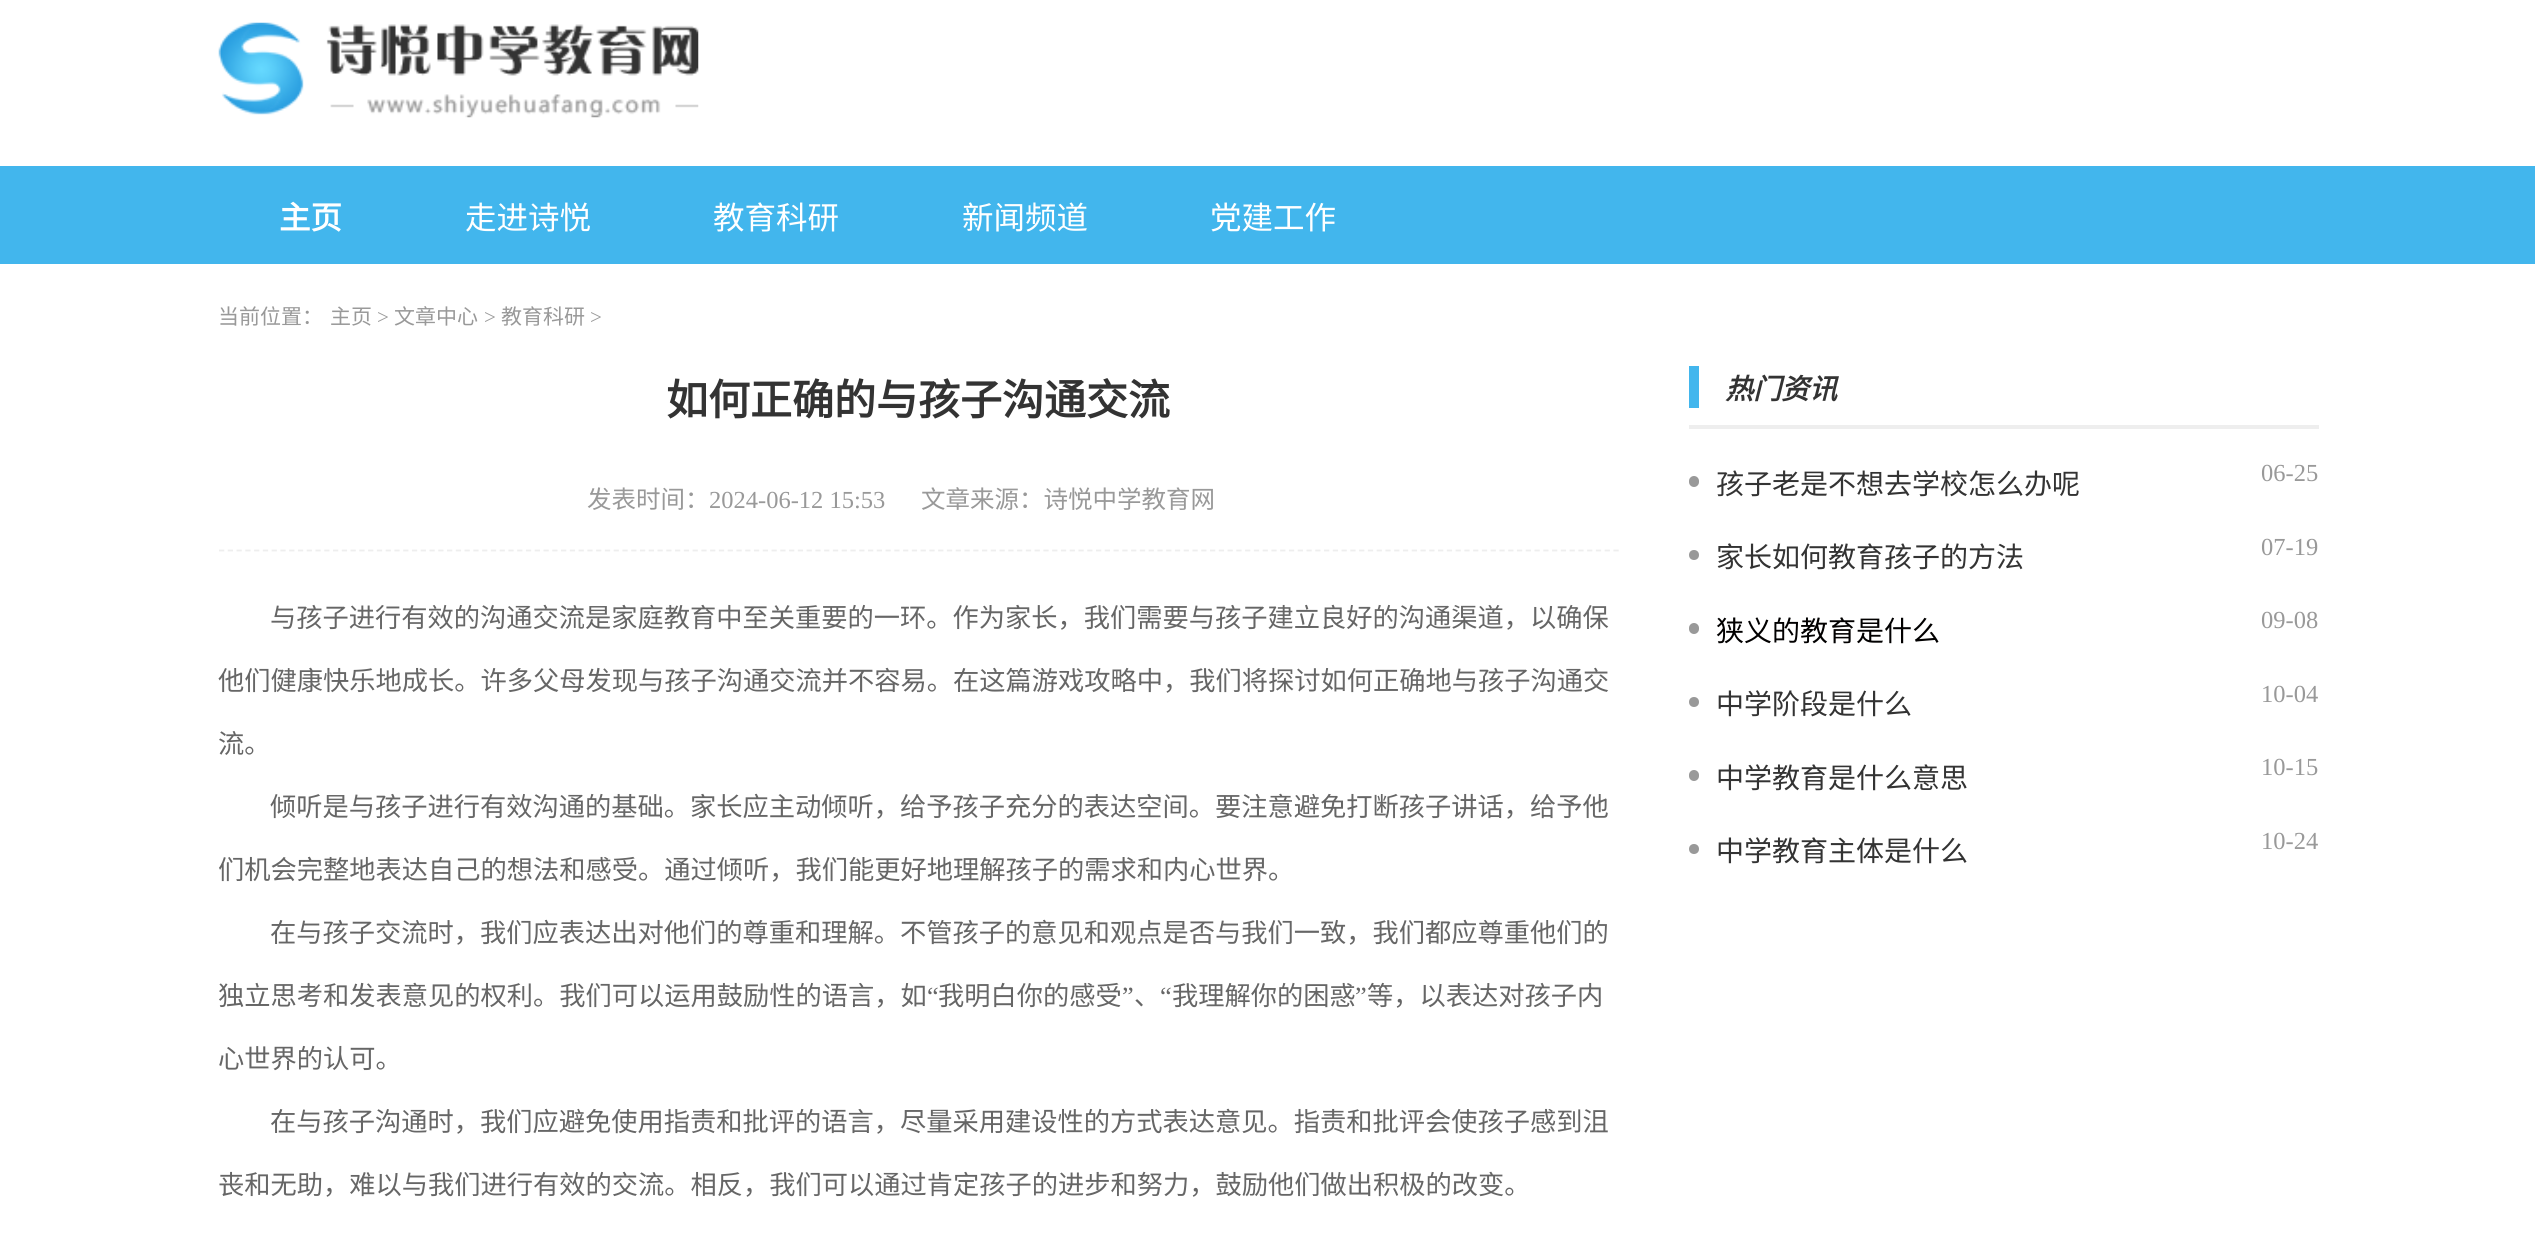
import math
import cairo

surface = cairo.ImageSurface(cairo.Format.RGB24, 2535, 1237)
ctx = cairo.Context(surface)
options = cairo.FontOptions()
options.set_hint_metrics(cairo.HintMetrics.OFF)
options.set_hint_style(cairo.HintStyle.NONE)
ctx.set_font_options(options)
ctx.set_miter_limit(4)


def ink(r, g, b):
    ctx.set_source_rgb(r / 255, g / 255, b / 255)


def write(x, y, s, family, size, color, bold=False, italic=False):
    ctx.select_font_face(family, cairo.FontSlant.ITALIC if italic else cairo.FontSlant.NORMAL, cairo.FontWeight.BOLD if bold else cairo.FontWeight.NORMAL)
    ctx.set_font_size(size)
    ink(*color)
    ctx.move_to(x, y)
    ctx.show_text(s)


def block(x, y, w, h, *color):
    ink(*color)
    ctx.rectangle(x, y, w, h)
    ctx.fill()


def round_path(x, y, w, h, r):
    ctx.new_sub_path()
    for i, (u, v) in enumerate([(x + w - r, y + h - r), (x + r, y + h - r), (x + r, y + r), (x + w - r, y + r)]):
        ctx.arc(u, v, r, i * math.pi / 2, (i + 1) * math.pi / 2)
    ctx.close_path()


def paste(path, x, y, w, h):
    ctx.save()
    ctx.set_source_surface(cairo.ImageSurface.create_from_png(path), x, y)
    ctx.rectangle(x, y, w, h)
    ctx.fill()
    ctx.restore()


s1 = dict(family="Noto Sans CJK SC", size=31.5, color=(255, 255, 255), bold=True)
s2 = dict(family="Noto Sans CJK SC", size=31.5, color=(255, 255, 255))
s3 = dict(family="Noto Sans CJK SC", size=21, color=(153, 153, 153))
s4 = dict(family="Liberation Serif", size=21, color=(153, 153, 153))
s5 = dict(family="Noto Sans CJK SC", size=42, color=(51, 51, 51), bold=True)
s6 = dict(family="Noto Sans CJK SC", size=24.5, color=(153, 153, 153))
s7 = dict(family="Liberation Serif", size=24.5, color=(153, 153, 153))
s8 = dict(family="Noto Sans CJK SC", size=26.25, color=(102, 102, 102))
s9 = dict(family="Liberation Serif", size=26.25, color=(102, 102, 102))
s10 = dict(family="Noto Sans CJK SC", size=28, color=(51, 51, 51), bold=True, italic=True)
s11 = dict(family="Noto Sans CJK SC", size=28, color=(51, 51, 51))
s12 = dict(family="Noto Sans CJK SC", size=28, color=(1, 0, 0))

ink(255, 255, 255)
ctx.paint()
block(0, 166, 2535, 98, 66, 182, 237)
paste("pic1.png", 218, 22, 481, 96)
write(279, 229, "主页", **s1)
write(465, 229, "走进诗悦", **s2)
write(713, 229, "教育科研", **s2)
write(962, 229, "新闻频道", **s2)
write(1210, 229, "党建工作", **s2)
write(218, 324, "当前位置：", **s3)
write(330, 324, "主页", **s3)
write(377, 324, ">", **s4)
write(394, 324, "文章中心", **s3)
write(484, 324, ">", **s4)
write(501, 324, "教育科研", **s3)
write(590, 324, ">", **s4)
ctx.new_path()
ctx.move_to(219, 550.5)
ctx.line_to(1619, 550.5)
ink(238, 238, 238)
ctx.set_line_width(1.8)
ctx.set_dash([5.25, 3.52])
ctx.stroke()
write(666, 415, "如何正确的与孩子沟通交流", **s5)
write(587, 508, "发表时间：", **s6)
write(709, 508, "2024-06-12 15:53", **s7)
write(921, 508, "文章来源：诗悦中学教育网", **s6)
write(270, 627, "与孩子进行有效的沟通交流是家庭教育中至关重要的一环。作为家长，我们需要与孩子建立良好的沟通渠道，以确保", **s8)
write(218, 690, "他们健康快乐地成长。许多父母发现与孩子沟通交流并不容易。在这篇游戏攻略中，我们将探讨如何正确地与孩子沟通交", **s8)
write(218, 753, "流。", **s8)
write(270, 816, "倾听是与孩子进行有效沟通的基础。家长应主动倾听，给予孩子充分的表达空间。要注意避免打断孩子讲话，给予他", **s8)
write(218, 879, "们机会完整地表达自己的想法和感受。通过倾听，我们能更好地理解孩子的需求和内心世界。", **s8)
write(270, 942, "在与孩子交流时，我们应表达出对他们的尊重和理解。不管孩子的意见和观点是否与我们一致，我们都应尊重他们的", **s8)
write(218, 1005, "独立思考和发表意见的权利。我们可以运用鼓励性的语言，如", **s8)
write(927, 1005, "“", **s9)
write(938, 1005, "我明白你的感受", **s8)
write(1122, 1005, "”", **s9)
write(1160, 1005, "“", **s9)
write(1172, 1005, "我理解你的困惑", **s8)
write(1355, 1005, "”", **s9)
write(1367, 1005, "等，以表达对孩子内", **s8)
write(1134, 1005, "、", **s8)
write(218, 1068, "心世界的认可。", **s8)
write(270, 1131, "在与孩子沟通时，我们应避免使用指责和批评的语言，尽量采用建设性的方式表达意见。指责和批评会使孩子感到沮", **s8)
write(218, 1194, "丧和无助，难以与我们进行有效的交流。相反，我们可以通过肯定孩子的进步和努力，鼓励他们做出积极的改变。", **s8)
block(1689, 425, 630, 4, 238, 238, 238)
block(1689, 366, 10, 42, 66, 182, 237)
write(1725, 399, "热门资讯", **s10)
ink(153, 153, 153)
round_path(1689, 476, 10, 11, 5)
ctx.fill()
write(1716, 494, "孩子老是不想去学校怎么办呢", **s11)
write(2261, 481, "06-25", **s7)
ctx.new_path()
ctx.arc(1694, 555, 5, 0, 2 * math.pi)
ctx.fill()
write(1716, 567, "家长如何教育孩子的方法", **s11)
write(2261, 555, "07-19", **s7)
round_path(1689, 623, 10, 11, 5)
ctx.fill()
write(1716, 641, "狭义的教育是什么", **s12)
write(2261, 628, "09-08", **s7)
ctx.new_path()
ctx.arc(1694, 702, 5, 0, 2 * math.pi)
ctx.fill()
write(1716, 714, "中学阶段是什么", **s11)
write(2261, 702, "10-04", **s7)
round_path(1689, 770, 10, 11, 5)
ctx.fill()
write(1716, 788, "中学教育是什么意思", **s11)
write(2261, 775, "10-15", **s7)
ctx.new_path()
ctx.arc(1694, 849, 5, 0, 2 * math.pi)
ctx.fill()
write(1716, 861, "中学教育主体是什么", **s11)
write(2261, 849, "10-24", **s7)
surface.write_to_png("screenshot.png")
